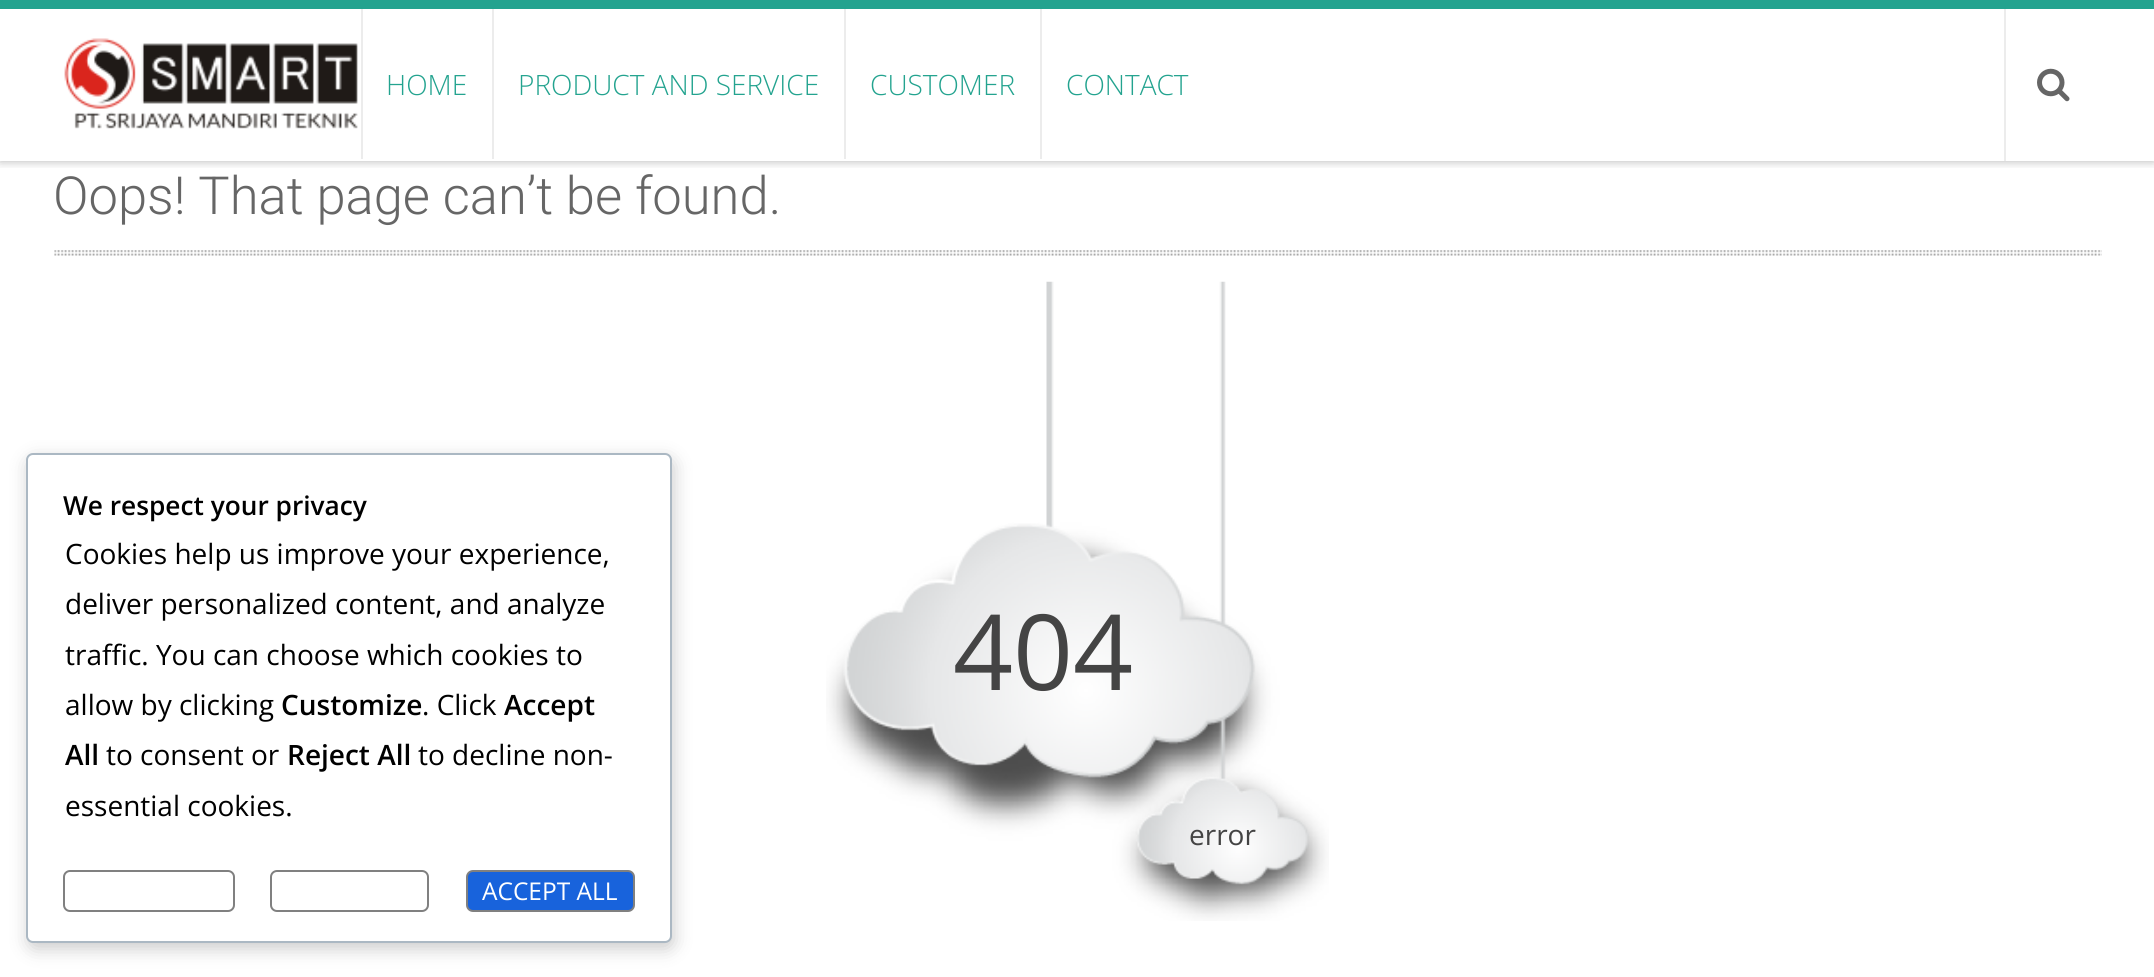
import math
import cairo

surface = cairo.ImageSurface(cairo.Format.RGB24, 2154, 977)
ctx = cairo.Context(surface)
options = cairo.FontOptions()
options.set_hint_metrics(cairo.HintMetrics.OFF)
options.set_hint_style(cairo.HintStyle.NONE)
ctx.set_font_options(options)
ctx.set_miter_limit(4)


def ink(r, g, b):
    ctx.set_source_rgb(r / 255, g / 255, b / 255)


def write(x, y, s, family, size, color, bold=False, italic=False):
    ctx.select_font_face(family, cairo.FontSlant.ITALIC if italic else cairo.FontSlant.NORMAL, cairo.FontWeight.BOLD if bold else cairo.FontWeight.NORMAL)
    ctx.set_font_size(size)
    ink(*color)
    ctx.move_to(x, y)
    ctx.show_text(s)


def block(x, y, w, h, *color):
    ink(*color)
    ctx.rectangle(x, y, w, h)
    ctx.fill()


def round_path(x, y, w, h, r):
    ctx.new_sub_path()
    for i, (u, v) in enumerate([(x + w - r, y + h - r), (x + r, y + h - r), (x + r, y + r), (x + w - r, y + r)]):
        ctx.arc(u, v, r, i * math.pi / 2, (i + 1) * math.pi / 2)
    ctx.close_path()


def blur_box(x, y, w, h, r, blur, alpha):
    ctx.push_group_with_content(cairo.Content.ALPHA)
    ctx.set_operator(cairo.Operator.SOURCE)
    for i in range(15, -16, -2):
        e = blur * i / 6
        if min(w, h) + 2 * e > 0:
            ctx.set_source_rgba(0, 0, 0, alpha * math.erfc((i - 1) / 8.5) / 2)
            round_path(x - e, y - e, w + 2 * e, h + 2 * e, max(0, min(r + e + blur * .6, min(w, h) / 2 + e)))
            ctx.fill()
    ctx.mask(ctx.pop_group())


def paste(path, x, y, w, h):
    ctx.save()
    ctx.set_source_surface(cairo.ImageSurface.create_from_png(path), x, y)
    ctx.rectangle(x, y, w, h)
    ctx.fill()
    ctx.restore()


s1 = dict(family="Open Sans Light", size=28, color=(35, 163, 143))
s2 = dict(family="Roboto Light", size=52.5, color=(102, 102, 102))
s3 = dict(family="Open Sans", size=105, color=(68, 68, 68))
s4 = dict(family="Open Sans", size=28, color=(68, 68, 68))
s5 = dict(family="Open Sans SemiBold", size=26.25, color=(0, 0, 0))
s6 = dict(family="Open Sans", size=28, color=(0, 0, 0))
s7 = dict(family="Open Sans SemiBold", size=28, color=(0, 0, 0))
s8 = dict(family="Open Sans", size=24.5, color=(255, 255, 255))

ink(255, 255, 255)
ctx.paint()
ctx.save()
ctx.rectangle(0, 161, 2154, 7)
ctx.clip()
ink(0, 0, 0)
blur_box(0, 0, 2154, 161, 0, 5, 0.3)
ctx.restore()
block(0, 0, 2154, 9, 35, 163, 143)
paste("pic1.png", 64, 38, 294, 91)
block(361, 9, 2, 150, 236, 236, 236)
write(386, 95, "HOME", **s1)
block(492, 9, 2, 150, 236, 236, 236)
write(518, 95, "PRODUCT AND SERVICE", **s1)
block(844, 9, 2, 150, 236, 236, 236)
write(870, 95, "CUSTOMER", **s1)
block(1040, 9, 2, 150, 236, 236, 236)
write(1066, 95, "CONTACT", **s1)
block(2004, 9, 2, 152, 236, 236, 236)
paste("pic2.png", 2037, 68, 33, 34)
paste("pic3.png", 54, 250, 2048, 6)
write(53, 214, "Oops! That page can’t be found.", **s2)
paste("pic4.png", 826, 281, 503, 640)
write(953, 690, "404", **s3)
write(1189, 845, "error", **s4)
ink(0, 0, 0)
blur_box(28, 459, 646, 490, 7, 9, 0.2)
ink(255, 255, 255)
round_path(27, 454, 644, 488, 6)
ctx.fill_preserve()
ink(171, 184, 195)
ctx.stroke()
write(63, 515, "We respect your privacy", **s5)
write(65, 564, "Cookies help us improve your experience,", **s6)
write(65, 614, "deliver personalized content, and analyze", **s6)
write(65, 665, "traffic. You can choose which cookies to", **s6)
write(65, 715, "allow by clicking", **s6)
write(281, 715, "Customize", **s7)
write(422, 715, ". Click", **s6)
write(504, 715, "Accept", **s7)
write(65, 765, "All", **s7)
write(106, 765, "to consent or", **s6)
write(287, 765, "Reject All", **s7)
write(418, 765, "to decline non-", **s6)
write(65, 816, "essential cookies.", **s6)
round_path(64, 871, 170, 40, 6)
ink(128, 128, 128)
ctx.stroke()
round_path(271, 871, 157, 40, 6)
ctx.stroke()
ink(24, 99, 220)
round_path(467, 871, 167, 40, 6)
ctx.fill_preserve()
ink(128, 128, 128)
ctx.stroke()
write(482, 900, "ACCEPT ALL", **s8)
surface.write_to_png("screenshot.png")
